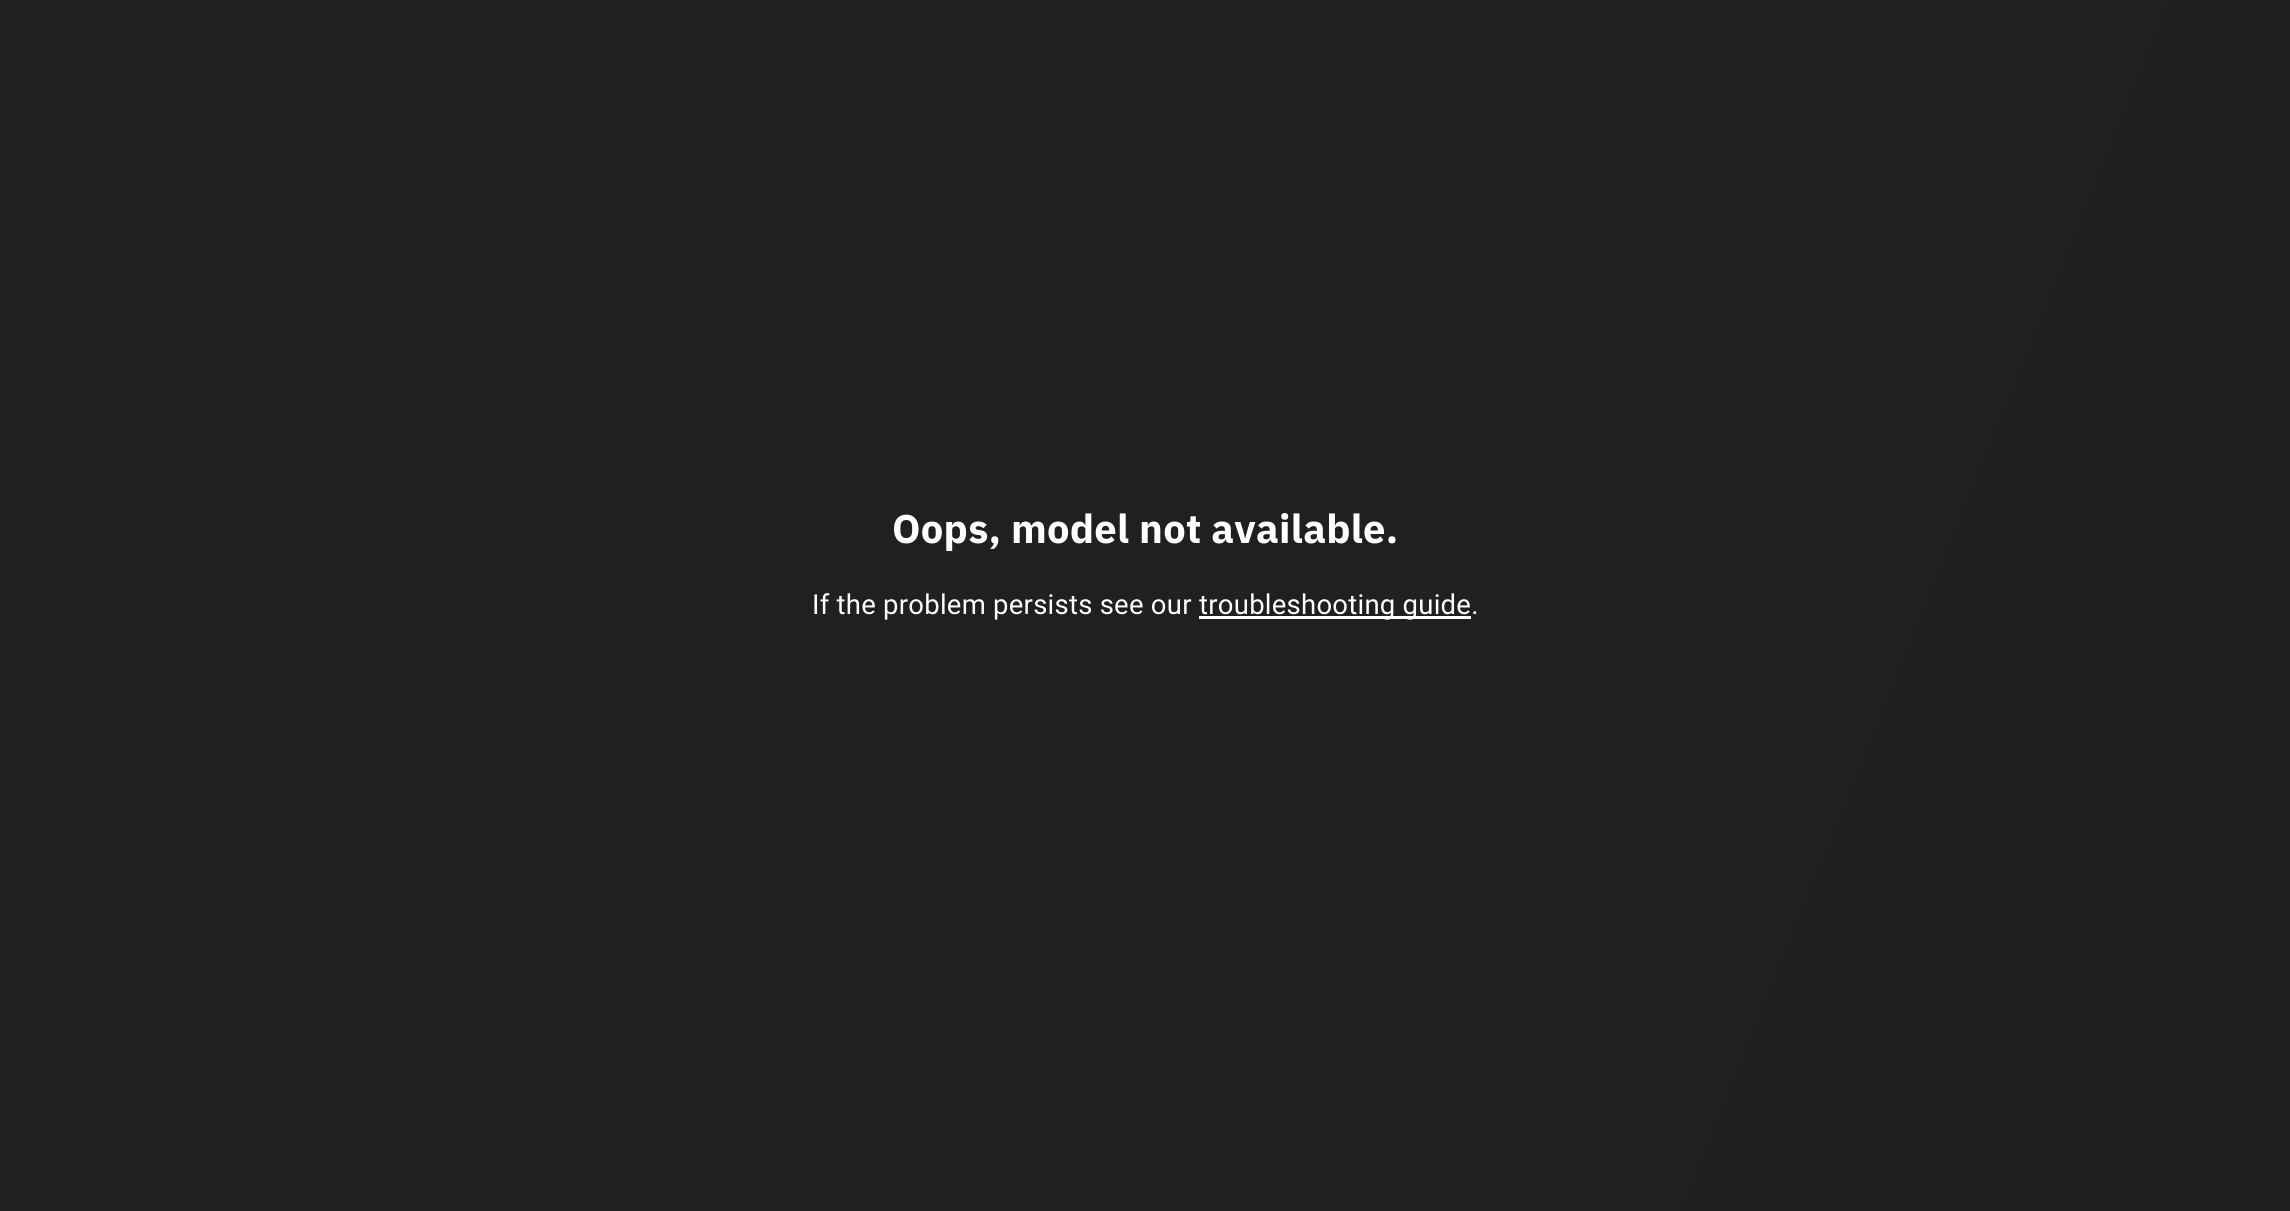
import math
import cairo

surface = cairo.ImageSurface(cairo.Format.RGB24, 2290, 1211)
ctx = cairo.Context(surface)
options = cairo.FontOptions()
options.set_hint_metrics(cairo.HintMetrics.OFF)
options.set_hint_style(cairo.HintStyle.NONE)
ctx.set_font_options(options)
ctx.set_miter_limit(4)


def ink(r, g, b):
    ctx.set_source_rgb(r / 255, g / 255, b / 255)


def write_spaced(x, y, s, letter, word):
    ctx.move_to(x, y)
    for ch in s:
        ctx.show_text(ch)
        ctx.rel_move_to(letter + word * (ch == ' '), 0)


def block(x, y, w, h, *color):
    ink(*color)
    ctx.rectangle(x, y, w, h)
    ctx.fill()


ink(255, 255, 255)
ctx.paint()
gradient = cairo.LinearGradient(-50, 123, 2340, 1088)
gradient.add_color_stop_rgba(0, 0.129, 0.129, 0.129, 1)
gradient.add_color_stop_rgba(1, 0.122, 0.122, 0.122, 1)
ctx.set_source(gradient)
ctx.rectangle(0, 0, 2290, 1211)
ctx.fill()
ctx.select_font_face("IBM Plex Sans", cairo.FontSlant.NORMAL, cairo.FontWeight.BOLD)
ctx.set_font_size(40)
ink(255, 255, 255)
write_spaced(892, 543, "Oops, model not available.", 0.25, 0)
ctx.select_font_face("Roboto")
ctx.set_font_size(27.5)
write_spaced(812, 614, "If the problem persists see our", 0.25, 0)
block(1199, 616, 272, 3, 255, 255, 255)
write_spaced(1199, 614, "troubleshooting guide.", 0.25, 0)
surface.write_to_png("screenshot.png")
